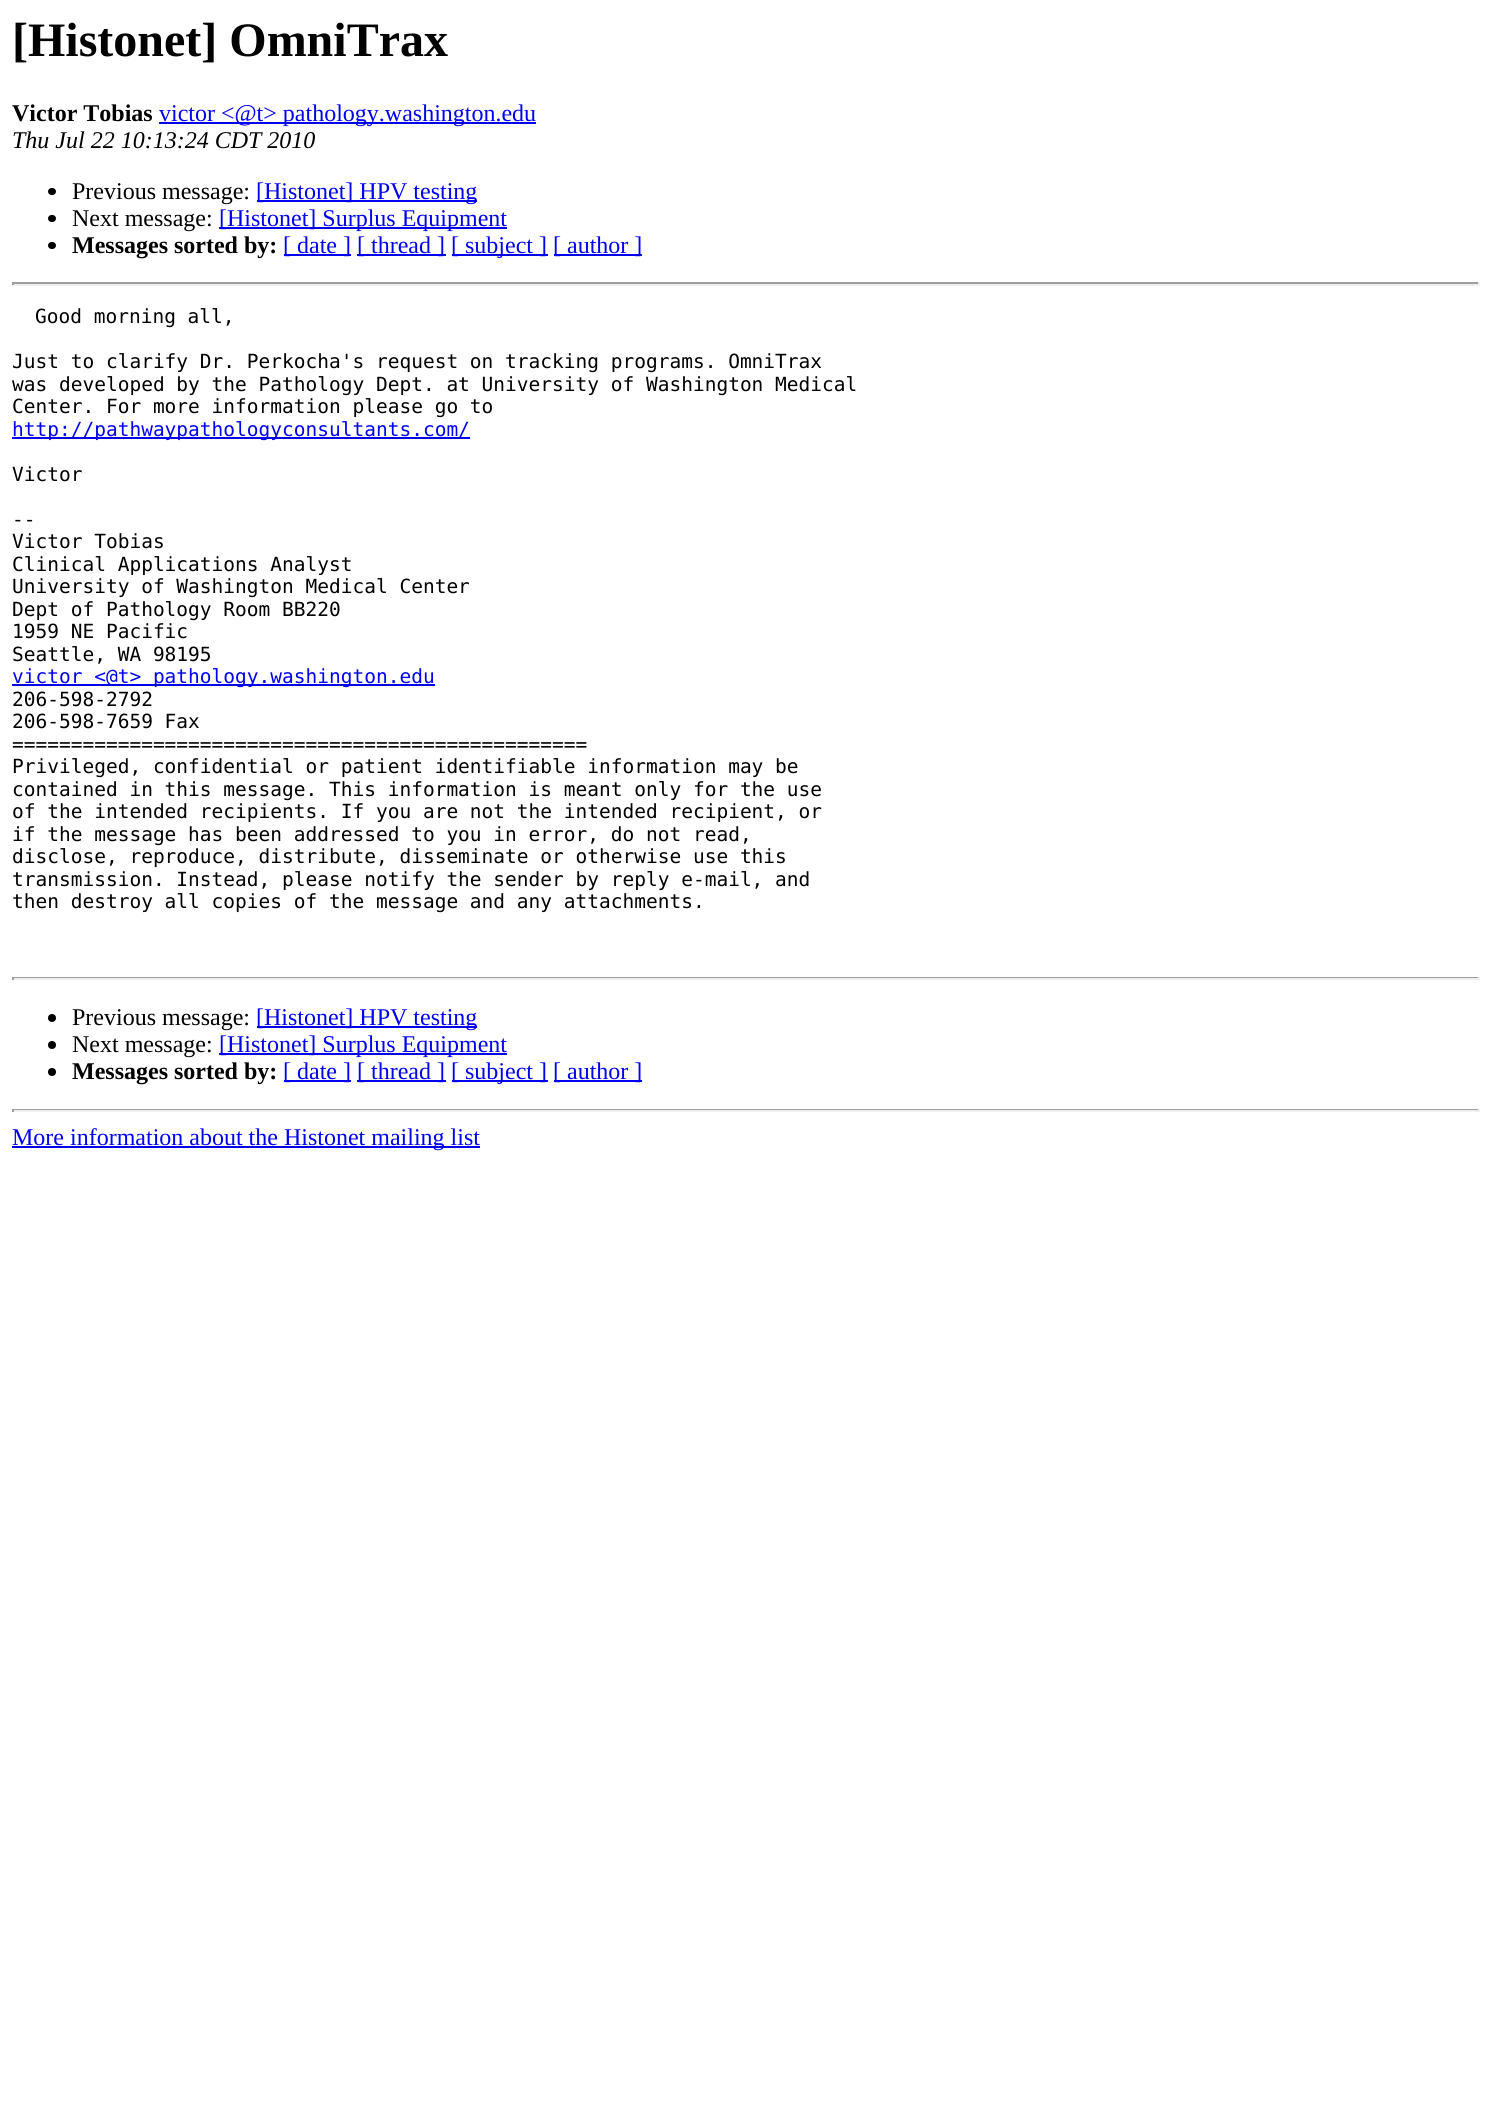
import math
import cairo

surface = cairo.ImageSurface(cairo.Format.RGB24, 1490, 2102)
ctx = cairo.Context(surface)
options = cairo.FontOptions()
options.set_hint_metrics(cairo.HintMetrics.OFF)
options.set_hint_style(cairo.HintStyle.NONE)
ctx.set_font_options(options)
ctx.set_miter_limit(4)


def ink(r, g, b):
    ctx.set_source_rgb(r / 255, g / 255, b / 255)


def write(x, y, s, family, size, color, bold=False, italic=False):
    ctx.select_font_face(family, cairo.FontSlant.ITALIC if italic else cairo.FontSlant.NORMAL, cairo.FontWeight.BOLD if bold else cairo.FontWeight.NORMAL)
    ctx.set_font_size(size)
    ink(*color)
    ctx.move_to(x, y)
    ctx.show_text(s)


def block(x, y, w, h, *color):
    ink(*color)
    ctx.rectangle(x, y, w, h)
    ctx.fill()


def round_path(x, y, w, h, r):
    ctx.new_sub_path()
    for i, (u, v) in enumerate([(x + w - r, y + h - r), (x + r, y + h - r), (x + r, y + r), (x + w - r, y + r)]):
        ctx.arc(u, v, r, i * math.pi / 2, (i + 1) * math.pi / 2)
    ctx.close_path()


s1 = dict(family="Liberation Serif", size=48, color=(0, 0, 0), bold=True)
s2 = dict(family="Liberation Serif", size=24, color=(0, 0, 0), bold=True)
s3 = dict(family="Liberation Serif", size=24, color=(0, 0, 238))
s4 = dict(family="Liberation Serif", size=24, color=(0, 0, 0), italic=True)
s5 = dict(family="Liberation Serif", size=24, color=(0, 0, 0))
s6 = dict(family="DejaVu Sans Mono", size=19.5, color=(0, 0, 0))
s7 = dict(family="DejaVu Sans Mono", size=19.5, color=(0, 0, 238))

ink(255, 255, 255)
ctx.paint()
write(12, 56, "[Histonet] OmniTrax", **s1)
write(12, 121, "Victor Tobias", **s2)
block(159, 122, 377, 2, 0, 0, 238)
write(159, 121, "victor <@t> pathology.washington.edu", **s3)
write(12, 148, "Thu Jul 22 10:13:24 CDT 2010", **s4)
round_path(48, 188, 8, 7, 3.5)
ctx.fill()
write(72, 199, "Previous message:", **s5)
block(257, 200, 220, 2, 0, 0, 238)
write(256, 199, "[Histonet] HPV testing", **s3)
ink(0, 0, 0)
round_path(48, 215, 8, 7, 3.5)
ctx.fill()
write(72, 226, "Next message:", **s5)
block(219, 227, 288, 2, 0, 0, 238)
write(219, 226, "[Histonet] Surplus Equipment", **s3)
ink(0, 0, 0)
round_path(48, 242, 8, 7, 3.5)
ctx.fill()
write(72, 253, "Messages sorted by:", **s2)
block(284, 254, 67, 2, 0, 0, 238)
write(283, 253, "[ date ]", **s3)
block(357, 254, 89, 2, 0, 0, 238)
write(357, 253, "[ thread ]", **s3)
block(452, 254, 96, 2, 0, 0, 238)
write(451, 253, "[ subject ]", **s3)
block(554, 254, 88, 2, 0, 0, 238)
write(553, 253, "[ author ]", **s3)
block(12, 282, 1467, 2, 159, 159, 159)
block(1478, 282, 2, 3, 238, 238, 238)
block(12, 284, 1467, 2, 238, 238, 238)
block(12, 282, 2, 3, 159, 159, 159)
write(35, 323, "Good morning all,", **s6)
write(12, 368, "Just to clarify Dr. Perkocha's request on tracking programs. OmniTrax", **s6)
write(12, 391, "was developed by the Pathology Dept. at University of Washington Medical", **s6)
write(12, 413, "Center. For more information please go to", **s6)
block(12, 437, 458, 2, 0, 0, 238)
write(12, 436, "http://pathwaypathologyconsultants.com/", **s7)
write(12, 481, "Victor", **s6)
write(12, 526, "--", **s6)
write(12, 548, "Victor Tobias", **s6)
write(12, 571, "Clinical Applications Analyst", **s6)
write(12, 593, "University of Washington Medical Center", **s6)
write(12, 616, "Dept of Pathology Room BB220", **s6)
write(12, 638, "1959 NE Pacific", **s6)
write(12, 661, "Seattle, WA 98195", **s6)
block(12, 684, 423, 2, 0, 0, 238)
write(12, 683, "victor <@t> pathology.washington.edu", **s7)
write(12, 706, "206-598-2792", **s6)
write(12, 728, "206-598-7659 Fax", **s6)
write(12, 751, "=================================================", **s6)
write(12, 773, "Privileged, confidential or patient identifiable information may be", **s6)
write(12, 796, "contained in this message. This information is meant only for the use", **s6)
write(12, 818, "of the intended recipients. If you are not the intended recipient, or", **s6)
write(12, 841, "if the message has been addressed to you in error, do not read,", **s6)
write(12, 863, "disclose, reproduce, distribute, disseminate or otherwise use this", **s6)
write(12, 886, "transmission. Instead, please notify the sender by reply e-mail, and", **s6)
write(12, 908, "then destroy all copies of the message and any attachments.", **s6)
block(12, 977, 1467, 1, 159, 159, 159)
block(1478, 977, 2, 3, 238, 238, 238)
block(12, 978, 1467, 2, 238, 238, 238)
block(12, 977, 2, 3, 159, 159, 159)
ink(0, 0, 0)
ctx.new_path()
ctx.arc(52, 1018, 4, 0, 2 * math.pi)
ctx.fill()
write(72, 1025, "Previous message:", **s5)
block(257, 1026, 220, 2, 0, 0, 238)
write(256, 1025, "[Histonet] HPV testing", **s3)
ink(0, 0, 0)
ctx.new_path()
ctx.arc(52, 1045, 4, 0, 2 * math.pi)
ctx.fill()
write(72, 1052, "Next message:", **s5)
block(219, 1053, 288, 2, 0, 0, 238)
write(219, 1052, "[Histonet] Surplus Equipment", **s3)
ink(0, 0, 0)
ctx.new_path()
ctx.arc(52, 1072, 4, 0, 2 * math.pi)
ctx.fill()
write(72, 1079, "Messages sorted by:", **s2)
block(284, 1080, 67, 2, 0, 0, 238)
write(283, 1079, "[ date ]", **s3)
block(357, 1080, 89, 2, 0, 0, 238)
write(357, 1079, "[ thread ]", **s3)
block(452, 1080, 96, 2, 0, 0, 238)
write(451, 1079, "[ subject ]", **s3)
block(554, 1080, 88, 2, 0, 0, 238)
write(553, 1079, "[ author ]", **s3)
block(12, 1109, 1467, 1, 159, 159, 159)
block(1478, 1109, 2, 3, 238, 238, 238)
block(12, 1110, 1467, 2, 238, 238, 238)
block(12, 1109, 2, 3, 159, 159, 159)
block(12, 1146, 468, 2, 0, 0, 238)
write(12, 1145, "More information about the Histonet mailing list", **s3)
surface.write_to_png("screenshot.png")
